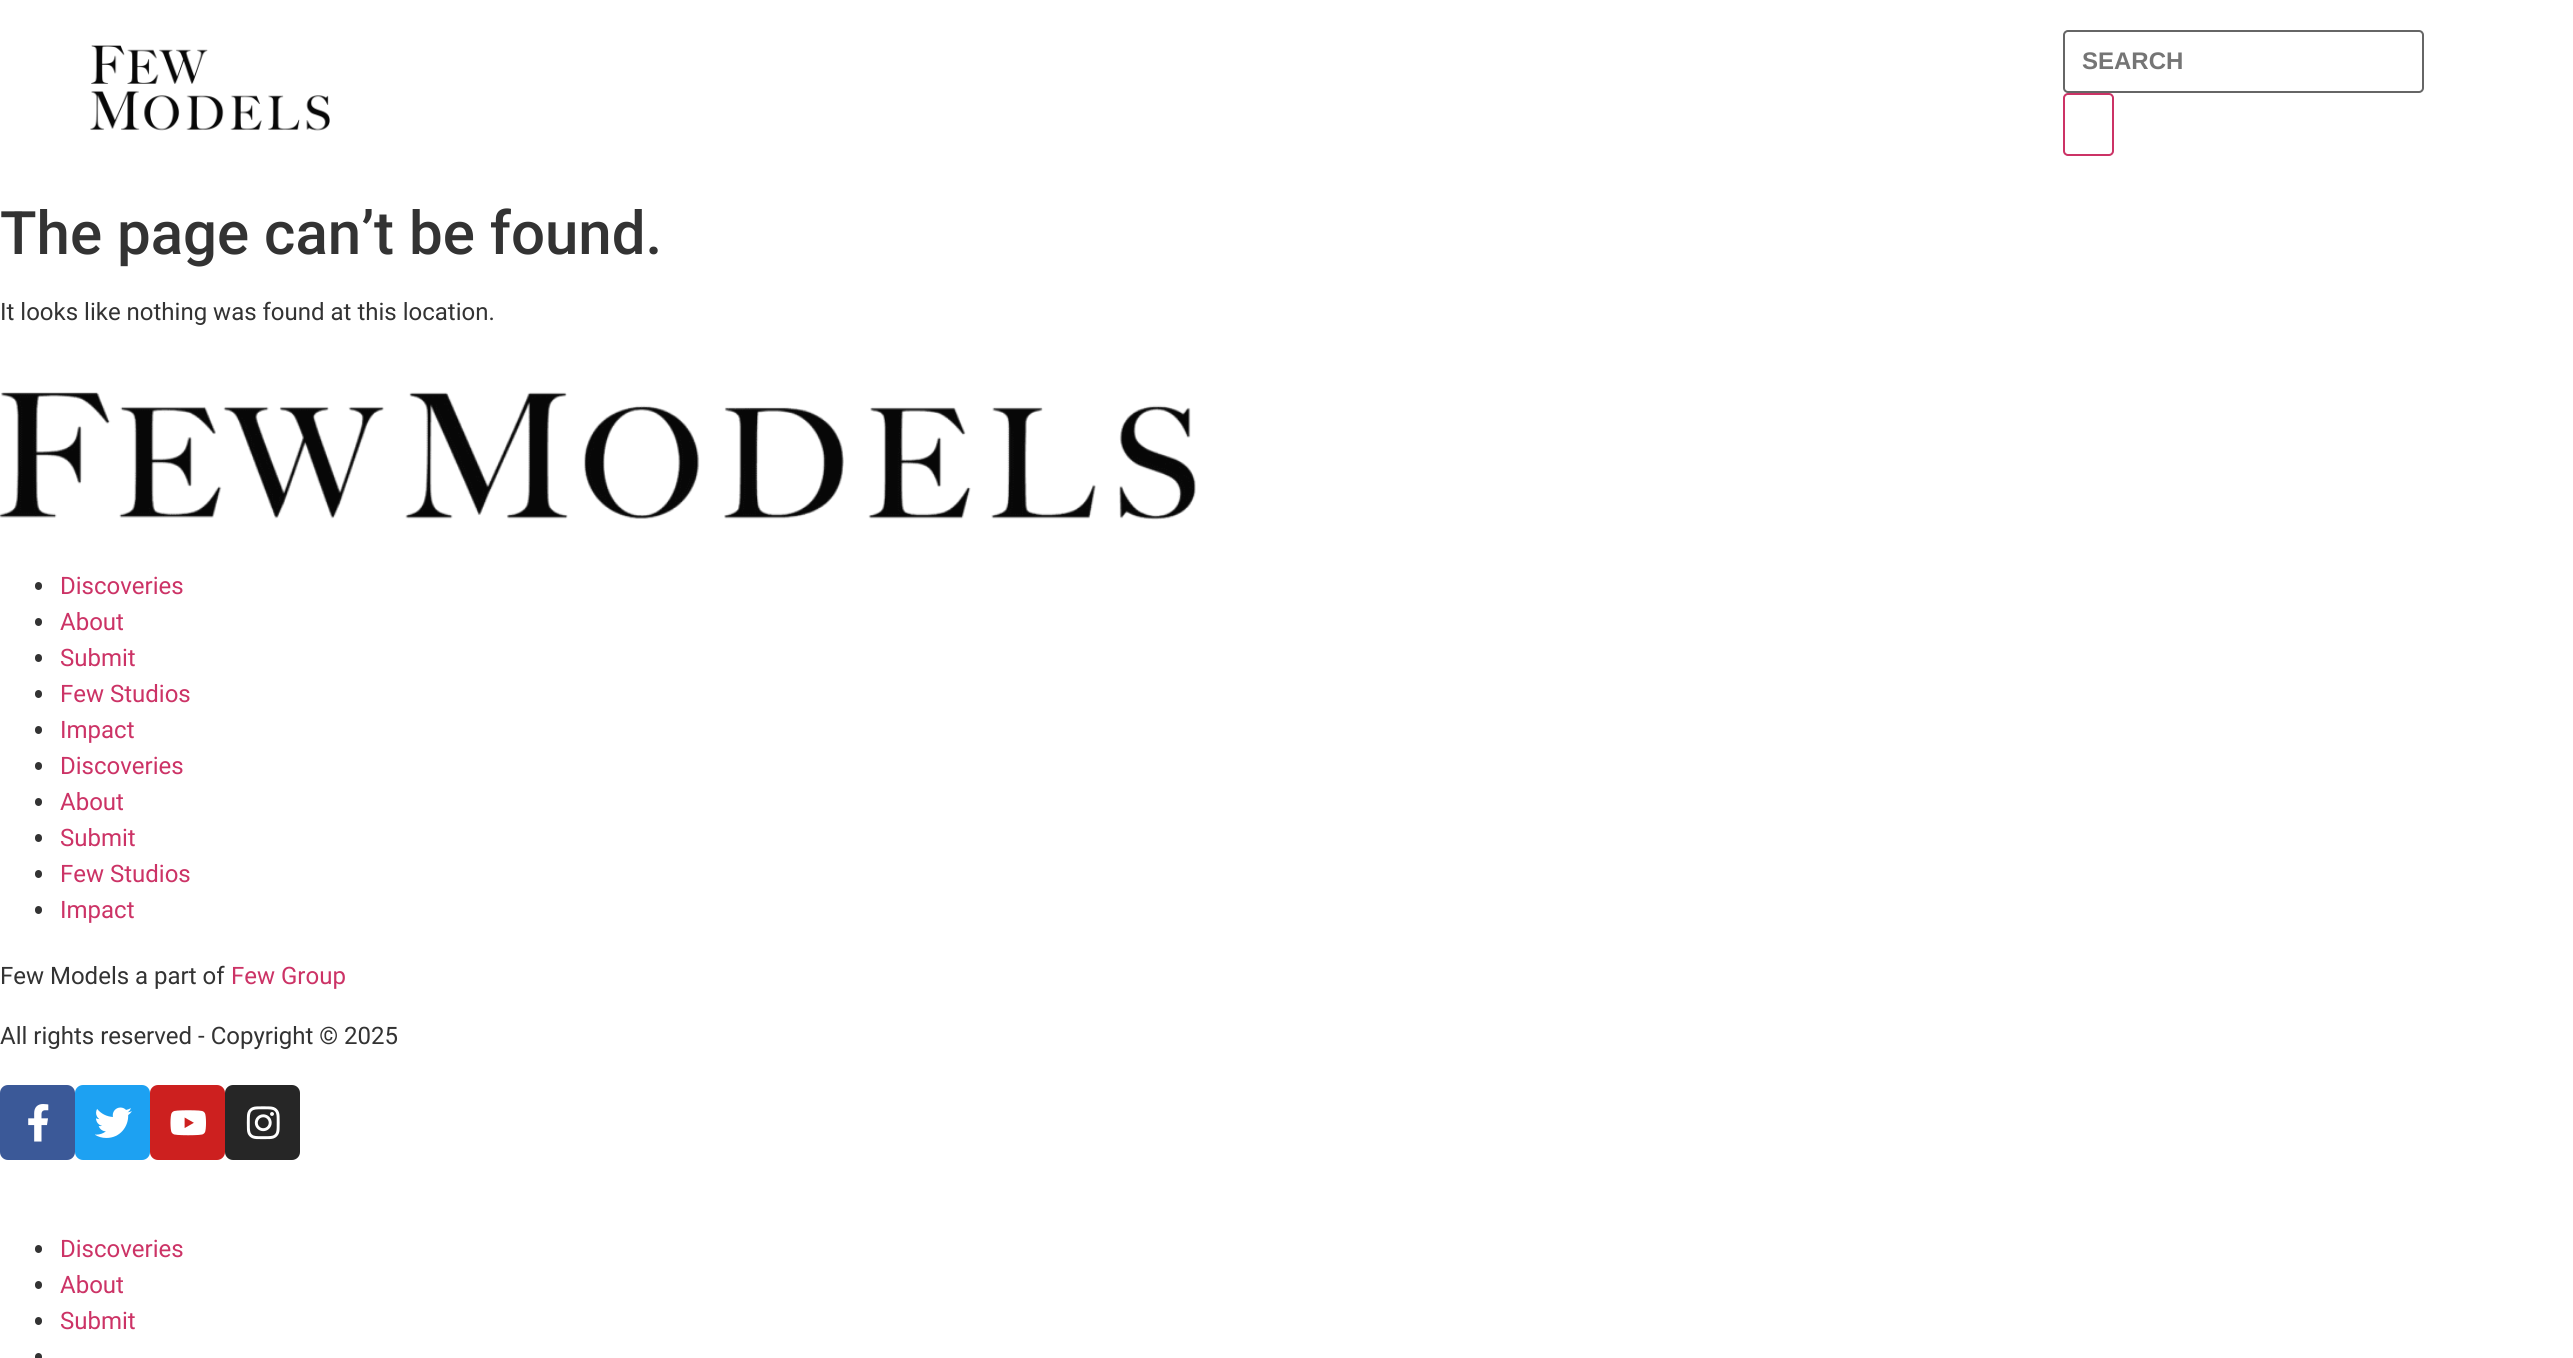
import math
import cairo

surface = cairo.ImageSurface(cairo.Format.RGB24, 2573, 1358)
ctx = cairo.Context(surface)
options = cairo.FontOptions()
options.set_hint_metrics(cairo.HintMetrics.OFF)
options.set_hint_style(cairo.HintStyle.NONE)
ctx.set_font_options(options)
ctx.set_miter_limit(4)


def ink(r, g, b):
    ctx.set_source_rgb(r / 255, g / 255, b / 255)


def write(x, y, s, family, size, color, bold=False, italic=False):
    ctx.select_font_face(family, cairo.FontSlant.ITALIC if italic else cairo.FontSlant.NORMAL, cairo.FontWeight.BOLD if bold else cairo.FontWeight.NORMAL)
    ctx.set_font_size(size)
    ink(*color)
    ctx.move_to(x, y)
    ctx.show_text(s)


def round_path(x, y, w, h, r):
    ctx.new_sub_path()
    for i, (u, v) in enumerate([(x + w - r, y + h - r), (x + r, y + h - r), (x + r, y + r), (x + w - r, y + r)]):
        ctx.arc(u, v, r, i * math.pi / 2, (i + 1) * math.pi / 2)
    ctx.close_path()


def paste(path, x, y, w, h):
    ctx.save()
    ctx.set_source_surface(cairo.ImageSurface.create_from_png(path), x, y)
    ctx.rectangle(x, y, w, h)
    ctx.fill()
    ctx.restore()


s1 = dict(family="Liberation Sans", size=24, color=(117, 117, 117), bold=True)
s2 = dict(family="Roboto Medium", size=60, color=(51, 51, 51))
s3 = dict(family="Roboto", size=24, color=(51, 51, 51))
s4 = dict(family="Roboto", size=24, color=(204, 51, 102))

ink(255, 255, 255)
ctx.paint()
paste("pic1.png", 90, 45, 240, 86)
round_path(2064, 31, 359, 61, 4)
ink(102, 102, 102)
ctx.stroke()
write(2082, 69, "SEARCH", **s1)
round_path(2064, 94, 49, 61, 4)
ink(204, 51, 102)
ctx.stroke()
write(0, 254, "The page can’t be found.", **s2)
write(0, 320, "It looks like nothing was found at this location.", **s3)
paste("pic2.png", 0, 392, 1196, 128)
round_path(35, 582, 7, 8, 3.5)
ctx.fill()
write(60, 594, "Discoveries", **s4)
ink(51, 51, 51)
round_path(35, 618, 7, 8, 3.5)
ctx.fill()
write(60, 630, "About", **s4)
ink(51, 51, 51)
round_path(35, 654, 7, 8, 3.5)
ctx.fill()
write(60, 666, "Submit", **s4)
ink(51, 51, 51)
round_path(35, 690, 7, 8, 3.5)
ctx.fill()
write(60, 702, "Few Studios", **s4)
ink(51, 51, 51)
round_path(35, 726, 7, 8, 3.5)
ctx.fill()
write(60, 738, "Impact", **s4)
ink(51, 51, 51)
round_path(35, 762, 7, 8, 3.5)
ctx.fill()
write(60, 774, "Discoveries", **s4)
ink(51, 51, 51)
round_path(35, 798, 7, 8, 3.5)
ctx.fill()
write(60, 810, "About", **s4)
ink(51, 51, 51)
round_path(35, 834, 7, 8, 3.5)
ctx.fill()
write(60, 846, "Submit", **s4)
ink(51, 51, 51)
round_path(35, 870, 7, 8, 3.5)
ctx.fill()
write(60, 882, "Few Studios", **s4)
ink(51, 51, 51)
round_path(35, 906, 7, 8, 3.5)
ctx.fill()
write(60, 918, "Impact", **s4)
write(0, 984, "Few Models a part of", **s3)
write(231, 984, "Few Group", **s4)
write(0, 1044, "All rights reserved - Copyright © 2025", **s3)
ink(59, 89, 152)
round_path(0, 1085, 75, 75, 8)
ctx.fill()
paste("pic3.png", 28, 1104, 21, 38)
ink(29, 161, 242)
round_path(75, 1085, 75, 75, 8)
ctx.fill()
paste("pic4.png", 95, 1107, 37, 31)
ink(205, 32, 31)
round_path(150, 1085, 75, 75, 8)
ctx.fill()
paste("pic5.png", 170, 1110, 36, 26)
ink(38, 38, 38)
round_path(225, 1085, 75, 75, 8)
ctx.fill()
paste("pic6.png", 246, 1106, 34, 34)
ink(51, 51, 51)
round_path(35, 1245, 7, 8, 3.5)
ctx.fill()
write(60, 1257, "Discoveries", **s4)
ink(51, 51, 51)
round_path(35, 1281, 7, 8, 3.5)
ctx.fill()
write(60, 1293, "About", **s4)
ink(51, 51, 51)
round_path(35, 1317, 7, 8, 3.5)
ctx.fill()
write(60, 1329, "Submit", **s4)
ink(51, 51, 51)
round_path(35, 1353, 7, 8, 3.5)
ctx.fill()
surface.write_to_png("screenshot.png")
